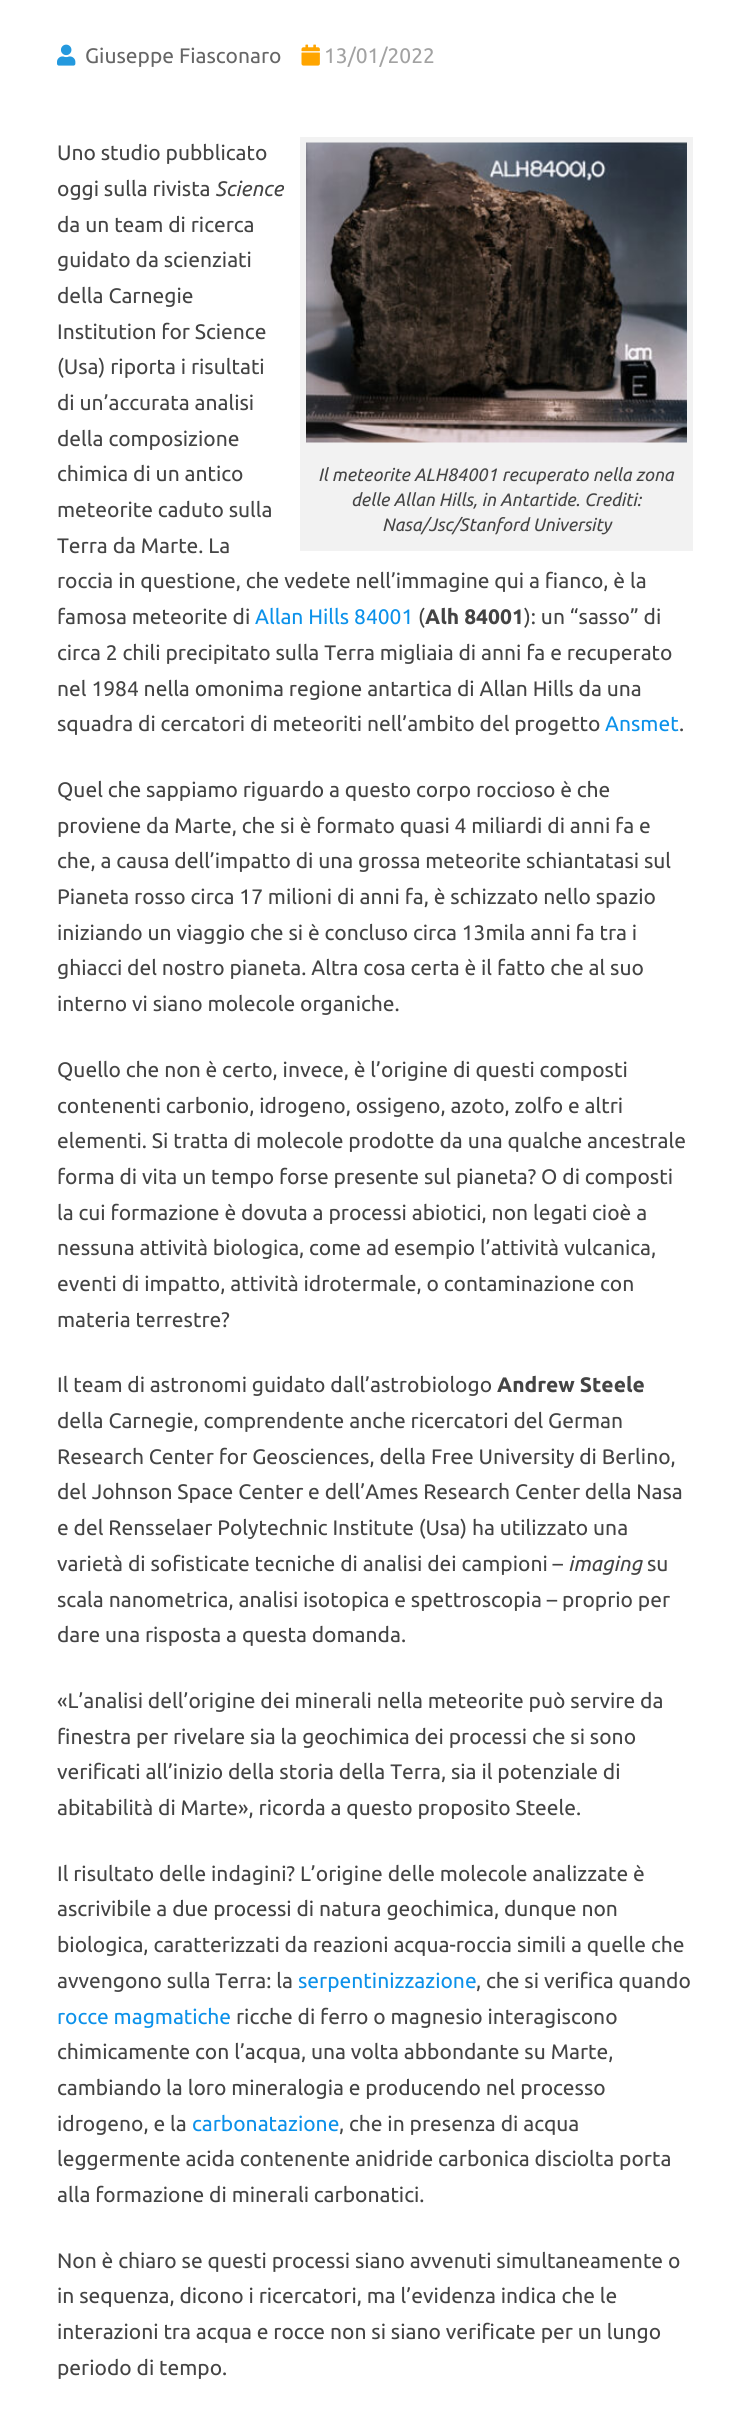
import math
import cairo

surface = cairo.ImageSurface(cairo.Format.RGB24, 749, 2432)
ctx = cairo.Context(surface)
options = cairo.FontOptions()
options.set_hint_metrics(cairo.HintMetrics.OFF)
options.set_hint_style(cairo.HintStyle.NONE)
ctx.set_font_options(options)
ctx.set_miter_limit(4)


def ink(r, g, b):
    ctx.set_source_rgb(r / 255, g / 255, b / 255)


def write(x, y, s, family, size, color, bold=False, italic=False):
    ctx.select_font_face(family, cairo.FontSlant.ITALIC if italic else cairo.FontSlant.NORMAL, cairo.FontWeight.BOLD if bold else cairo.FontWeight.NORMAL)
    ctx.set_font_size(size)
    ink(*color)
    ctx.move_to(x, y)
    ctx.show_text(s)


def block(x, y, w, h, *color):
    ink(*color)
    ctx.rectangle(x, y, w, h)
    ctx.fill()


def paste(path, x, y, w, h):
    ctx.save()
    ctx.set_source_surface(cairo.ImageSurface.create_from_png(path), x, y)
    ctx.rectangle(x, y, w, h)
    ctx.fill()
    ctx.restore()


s1 = dict(family="Ubuntu", size=21, color=(102, 102, 102))
s2 = dict(family="Ubuntu", size=21, color=(162, 162, 162))
s3 = dict(family="Ubuntu", size=21, color=(68, 68, 68))
s4 = dict(family="Ubuntu", size=21, color=(68, 68, 68), italic=True)
s5 = dict(family="Ubuntu", size=21, color=(11, 145, 234))
s6 = dict(family="Ubuntu", size=21, color=(68, 68, 68), bold=True)
s7 = dict(family="Ubuntu", size=18, color=(68, 68, 68), italic=True)

ink(255, 255, 255)
ctx.paint()
paste("pic1.png", 57, 44, 19, 22)
write(85, 63, "Giuseppe Fiasconaro", **s1)
paste("pic2.png", 301, 44, 19, 22)
write(324, 63, "13/01/2022", **s2)
write(57, 160, "Uno studio pubblicato", **s3)
write(57, 196, "oggi sulla rivista", **s3)
write(215, 196, "Science", **s4)
write(57, 232, "da un team di ricerca", **s3)
write(57, 267, "guidato da scienziati", **s3)
write(57, 303, "della Carnegie", **s3)
write(57, 339, "Institution for Science", **s3)
write(57, 374, "(Usa) riporta i risultati", **s3)
write(57, 410, "di un’accurata analisi", **s3)
write(57, 446, "della composizione", **s3)
write(57, 481, "chimica di un antico", **s3)
write(57, 517, "meteorite caduto sulla", **s3)
write(57, 553, "Terra da Marte. La", **s3)
write(57, 588, "roccia in questione, che vedete nell’immagine qui a fianco, è la", **s3)
write(57, 624, "famosa meteorite di", **s3)
write(255, 624, "Allan Hills 84001", **s5)
write(418, 624, "(", **s3)
write(425, 624, "Alh 84001", **s6)
write(524, 624, "): un “sasso” di", **s3)
write(57, 660, "circa 2 chili precipitato sulla Terra migliaia di anni fa e recuperato", **s3)
write(57, 696, "nel 1984 nella omonima regione antartica di Allan Hills da una", **s3)
write(57, 731, "squadra di cercatori di meteoriti nell’ambito del progetto", **s3)
write(605, 731, "Ansmet", **s5)
write(679, 731, ".", **s3)
block(300, 137, 393, 414, 242, 242, 242)
paste("pic3.png", 306, 142, 381, 301)
write(318, 481, "Il meteorite ALH84001 recuperato nella zona", **s7)
write(351, 506, "delle Allan Hills, in Antartide. Crediti:", **s7)
write(382, 531, "Nasa/Jsc/Stanford University", **s7)
write(57, 797, "Quel che sappiamo riguardo a questo corpo roccioso è che", **s3)
write(57, 833, "proviene da Marte, che si è formato quasi 4 miliardi di anni fa e", **s3)
write(57, 868, "che, a causa dell’impatto di una grossa meteorite schiantatasi sul", **s3)
write(57, 904, "Pianeta rosso circa 17 milioni di anni fa, è schizzato nello spazio", **s3)
write(57, 940, "iniziando un viaggio che si è concluso circa 13mila anni fa tra i", **s3)
write(57, 975, "ghiacci del nostro pianeta. Altra cosa certa è il fatto che al suo", **s3)
write(57, 1011, "interno vi siano molecole organiche.", **s3)
write(57, 1077, "Quello che non è certo, invece, è l’origine di questi composti", **s3)
write(57, 1113, "contenenti carbonio, idrogeno, ossigeno, azoto, zolfo e altri", **s3)
write(57, 1148, "elementi. Si tratta di molecole prodotte da una qualche ancestrale", **s3)
write(57, 1184, "forma di vita un tempo forse presente sul pianeta? O di composti", **s3)
write(57, 1220, "la cui formazione è dovuta a processi abiotici, non legati cioè a", **s3)
write(57, 1255, "nessuna attività biologica, come ad esempio l’attività vulcanica,", **s3)
write(57, 1291, "eventi di impatto, attività idrotermale, o contaminazione con", **s3)
write(57, 1327, "materia terrestre?", **s3)
write(57, 1392, "Il team di astronomi guidato dall’astrobiologo", **s3)
write(497, 1392, "Andrew Steele", **s6)
write(57, 1428, "della Carnegie, comprendente anche ricercatori del German", **s3)
write(57, 1464, "Research Center for Geosciences, della Free University di Berlino,", **s3)
write(57, 1499, "del Johnson Space Center e dell’Ames Research Center della Nasa", **s3)
write(57, 1535, "e del Rensselaer Polytechnic Institute (Usa) ha utilizzato una", **s3)
write(57, 1571, "varietà di sofisticate tecniche di analisi dei campioni –", **s3)
write(568, 1571, "imaging", **s4)
write(647, 1571, "su", **s3)
write(57, 1607, "scala nanometrica, analisi isotopica e spettroscopia – proprio per", **s3)
write(57, 1642, "dare una risposta a questa domanda.", **s3)
write(57, 1708, "«L’analisi dell’origine dei minerali nella meteorite può servire da", **s3)
write(57, 1744, "finestra per rivelare sia la geochimica dei processi che si sono", **s3)
write(57, 1779, "verificati all’inizio della storia della Terra, sia il potenziale di", **s3)
write(57, 1815, "abitabilità di Marte», ricorda a questo proposito Steele.", **s3)
write(57, 1881, "Il risultato delle indagini? L’origine delle molecole analizzate è", **s3)
write(57, 1916, "ascrivibile a due processi di natura geochimica, dunque non", **s3)
write(57, 1952, "biologica, caratterizzati da reazioni acqua-roccia simili a quelle che", **s3)
write(57, 1988, "avvengono sulla Terra: la", **s3)
write(298, 1988, "serpentinizzazione", **s5)
write(476, 1988, ", che si verifica quando", **s3)
write(57, 2024, "rocce magmatiche", **s5)
write(236, 2024, "ricche di ferro o magnesio interagiscono", **s3)
write(57, 2059, "chimicamente con l’acqua, una volta abbondante su Marte,", **s3)
write(57, 2095, "cambiando la loro mineralogia e producendo nel processo", **s3)
write(57, 2131, "idrogeno, e la", **s3)
write(192, 2131, "carbonatazione", **s5)
write(339, 2131, ", che in presenza di acqua", **s3)
write(57, 2166, "leggermente acida contenente anidride carbonica disciolta porta", **s3)
write(57, 2202, "alla formazione di minerali carbonatici.", **s3)
write(57, 2268, "Non è chiaro se questi processi siano avvenuti simultaneamente o", **s3)
write(57, 2303, "in sequenza, dicono i ricercatori, ma l’evidenza indica che le", **s3)
write(57, 2339, "interazioni tra acqua e rocce non si siano verificate per un lungo", **s3)
write(57, 2375, "periodo di tempo.", **s3)
surface.write_to_png("screenshot.png")
